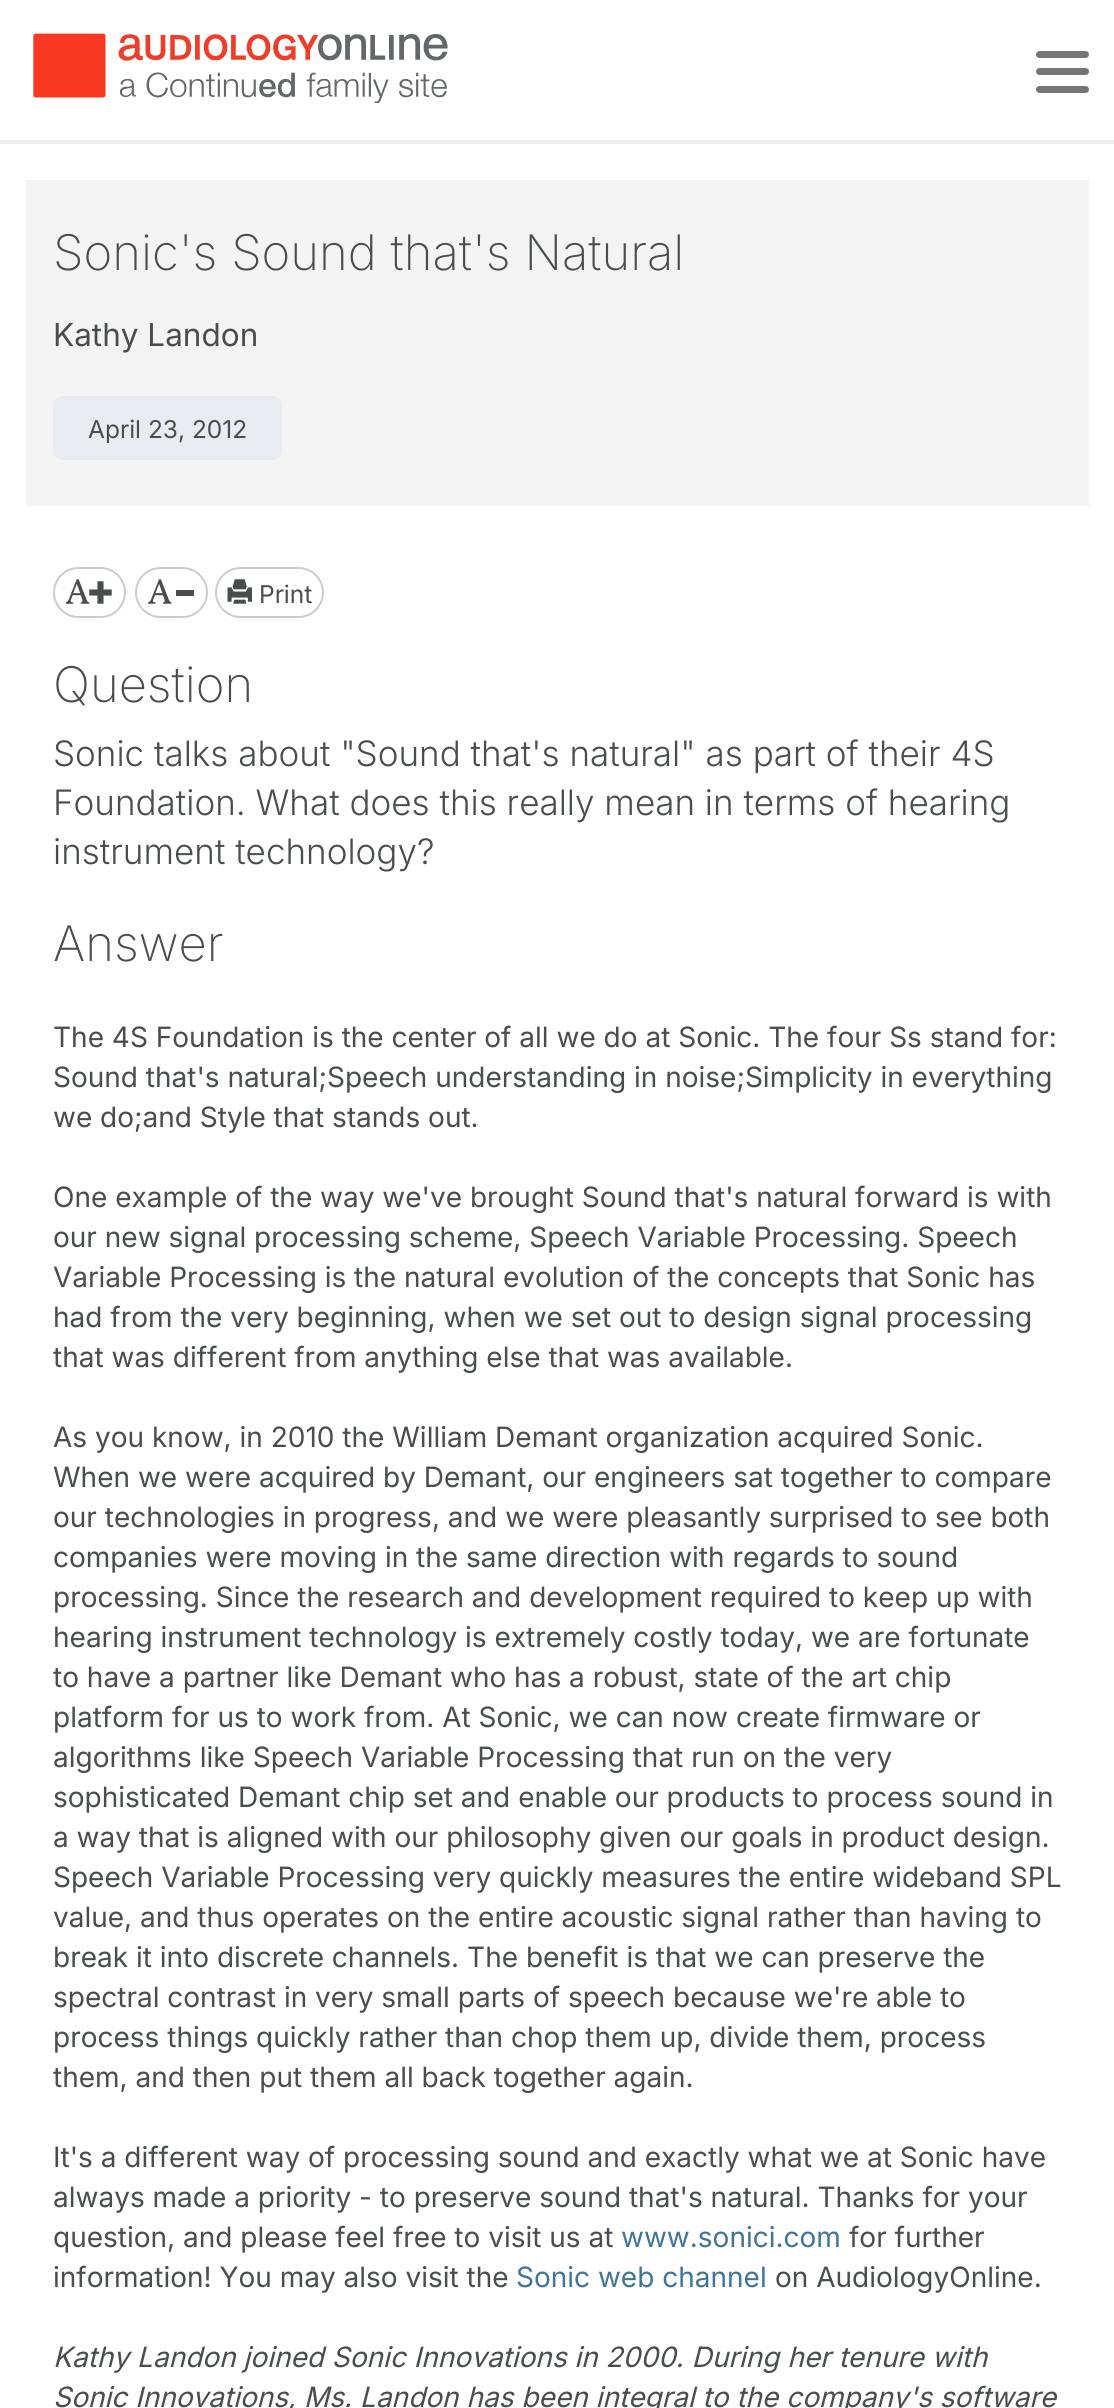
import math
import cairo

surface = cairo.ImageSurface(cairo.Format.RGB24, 1114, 2408)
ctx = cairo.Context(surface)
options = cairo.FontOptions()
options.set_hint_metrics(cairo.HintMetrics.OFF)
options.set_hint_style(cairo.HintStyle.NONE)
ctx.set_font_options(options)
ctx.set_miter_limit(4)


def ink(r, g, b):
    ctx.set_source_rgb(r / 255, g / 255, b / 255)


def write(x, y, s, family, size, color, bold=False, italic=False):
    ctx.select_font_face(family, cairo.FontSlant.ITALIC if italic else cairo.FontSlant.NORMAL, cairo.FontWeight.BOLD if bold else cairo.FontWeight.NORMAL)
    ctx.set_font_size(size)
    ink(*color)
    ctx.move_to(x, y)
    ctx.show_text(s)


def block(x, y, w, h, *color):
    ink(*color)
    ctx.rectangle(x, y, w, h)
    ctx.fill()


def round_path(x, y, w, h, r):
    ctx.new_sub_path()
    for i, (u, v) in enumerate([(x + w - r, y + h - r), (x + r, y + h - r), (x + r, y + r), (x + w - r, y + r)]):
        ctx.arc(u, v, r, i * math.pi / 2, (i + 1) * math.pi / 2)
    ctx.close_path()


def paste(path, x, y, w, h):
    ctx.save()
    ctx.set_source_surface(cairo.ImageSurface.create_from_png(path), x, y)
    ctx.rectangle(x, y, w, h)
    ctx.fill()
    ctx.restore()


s1 = dict(family="Inter ExtraLight", size=49, color=(74, 77, 80))
s2 = dict(family="Inter", size=31.5, color=(74, 77, 80))
s3 = dict(family="Inter", size=24.5, color=(74, 77, 80))
s4 = dict(family="Inter Light", size=35, color=(74, 77, 80))
s5 = dict(family="Inter", size=28, color=(74, 77, 80))
s6 = dict(family="Inter", size=28, color=(64, 117, 150))
s7 = dict(family="Inter", size=28, color=(74, 77, 80), italic=True)

ink(255, 255, 255)
ctx.paint()
paste("pic1.png", 33, 33, 415, 70)
ink(117, 117, 117)
round_path(1036, 51, 53, 7, 3.5)
ctx.fill()
round_path(1036, 68, 53, 7, 3.5)
ctx.fill()
round_path(1036, 86, 53, 7, 3.5)
ctx.fill()
block(0, 140, 1114, 4, 238, 238, 238)
block(26, 180, 1063, 326, 244, 244, 244)
write(53, 270, "Sonic's Sound that's Natural", **s1)
write(53, 346, "Kathy Landon", **s2)
ink(232, 235, 240)
round_path(53, 396, 229, 64, 9)
ctx.fill()
write(88, 438, "April 23, 2012", **s3)
round_path(54, 568, 71, 49, 24.5)
ink(204, 204, 204)
ctx.stroke()
paste("pic2.png", 65, 579, 25, 25)
paste("pic3.png", 89, 581, 23, 23)
round_path(136, 568, 71, 49, 24.5)
ctx.stroke()
paste("pic4.png", 148, 579, 24, 25)
block(176, 590, 18, 6, 74, 77, 80)
round_path(216, 568, 107, 49, 24.5)
ink(204, 204, 204)
ctx.stroke()
paste("pic5.png", 227, 579, 25, 25)
write(259, 603, "Print", **s3)
write(53, 702, "Question", **s1)
write(53, 766, "Sonic talks about \"Sound that's natural\" as part of their 4S", **s4)
write(53, 815, "Foundation. What does this really mean in terms of hearing", **s4)
write(53, 864, "instrument technology?", **s4)
write(53, 961, "Answer", **s1)
write(53, 1047, "The 4S Foundation is the center of all we do at Sonic. The four Ss stand for:", **s5)
write(53, 1087, "Sound that's natural;Speech understanding in noise;Simplicity in everything", **s5)
write(53, 1127, "we do;and Style that stands out.", **s5)
write(53, 1207, "One example of the way we've brought Sound that's natural forward is with", **s5)
write(53, 1247, "our new signal processing scheme, Speech Variable Processing. Speech", **s5)
write(53, 1287, "Variable Processing is the natural evolution of the concepts that Sonic has", **s5)
write(53, 1327, "had from the very beginning, when we set out to design signal processing", **s5)
write(53, 1367, "that was different from anything else that was available.", **s5)
write(53, 1447, "As you know, in 2010 the William Demant organization acquired Sonic.", **s5)
write(53, 1487, "When we were acquired by Demant, our engineers sat together to compare", **s5)
write(53, 1527, "our technologies in progress, and we were pleasantly surprised to see both", **s5)
write(53, 1567, "companies were moving in the same direction with regards to sound", **s5)
write(53, 1607, "processing. Since the research and development required to keep up with", **s5)
write(53, 1647, "hearing instrument technology is extremely costly today, we are fortunate", **s5)
write(53, 1687, "to have a partner like Demant who has a robust, state of the art chip", **s5)
write(53, 1727, "platform for us to work from. At Sonic, we can now create firmware or", **s5)
write(53, 1767, "algorithms like Speech Variable Processing that run on the very", **s5)
write(53, 1807, "sophisticated Demant chip set and enable our products to process sound in", **s5)
write(53, 1847, "a way that is aligned with our philosophy given our goals in product design.", **s5)
write(53, 1887, "Speech Variable Processing very quickly measures the entire wideband SPL", **s5)
write(53, 1927, "value, and thus operates on the entire acoustic signal rather than having to", **s5)
write(53, 1967, "break it into discrete channels. The benefit is that we can preserve the", **s5)
write(53, 2007, "spectral contrast in very small parts of speech because we're able to", **s5)
write(53, 2047, "process things quickly rather than chop them up, divide them, process", **s5)
write(53, 2087, "them, and then put them all back together again.", **s5)
write(53, 2167, "It's a different way of processing sound and exactly what we at Sonic have", **s5)
write(53, 2207, "always made a priority - to preserve sound that's natural. Thanks for your", **s5)
write(53, 2247, "question, and please feel free to visit us at", **s5)
write(621, 2247, "www.sonici.com", **s6)
write(849, 2247, "for further", **s5)
write(53, 2287, "information! You may also visit the", **s5)
write(516, 2287, "Sonic web channel", **s6)
write(775, 2287, "on AudiologyOnline.", **s5)
write(53, 2367, "Kathy Landon joined Sonic Innovations in 2000. During her tenure with", **s7)
write(53, 2407, "Sonic Innovations, Ms. Landon has been integral to the company's software", **s7)
surface.write_to_png("screenshot.png")
